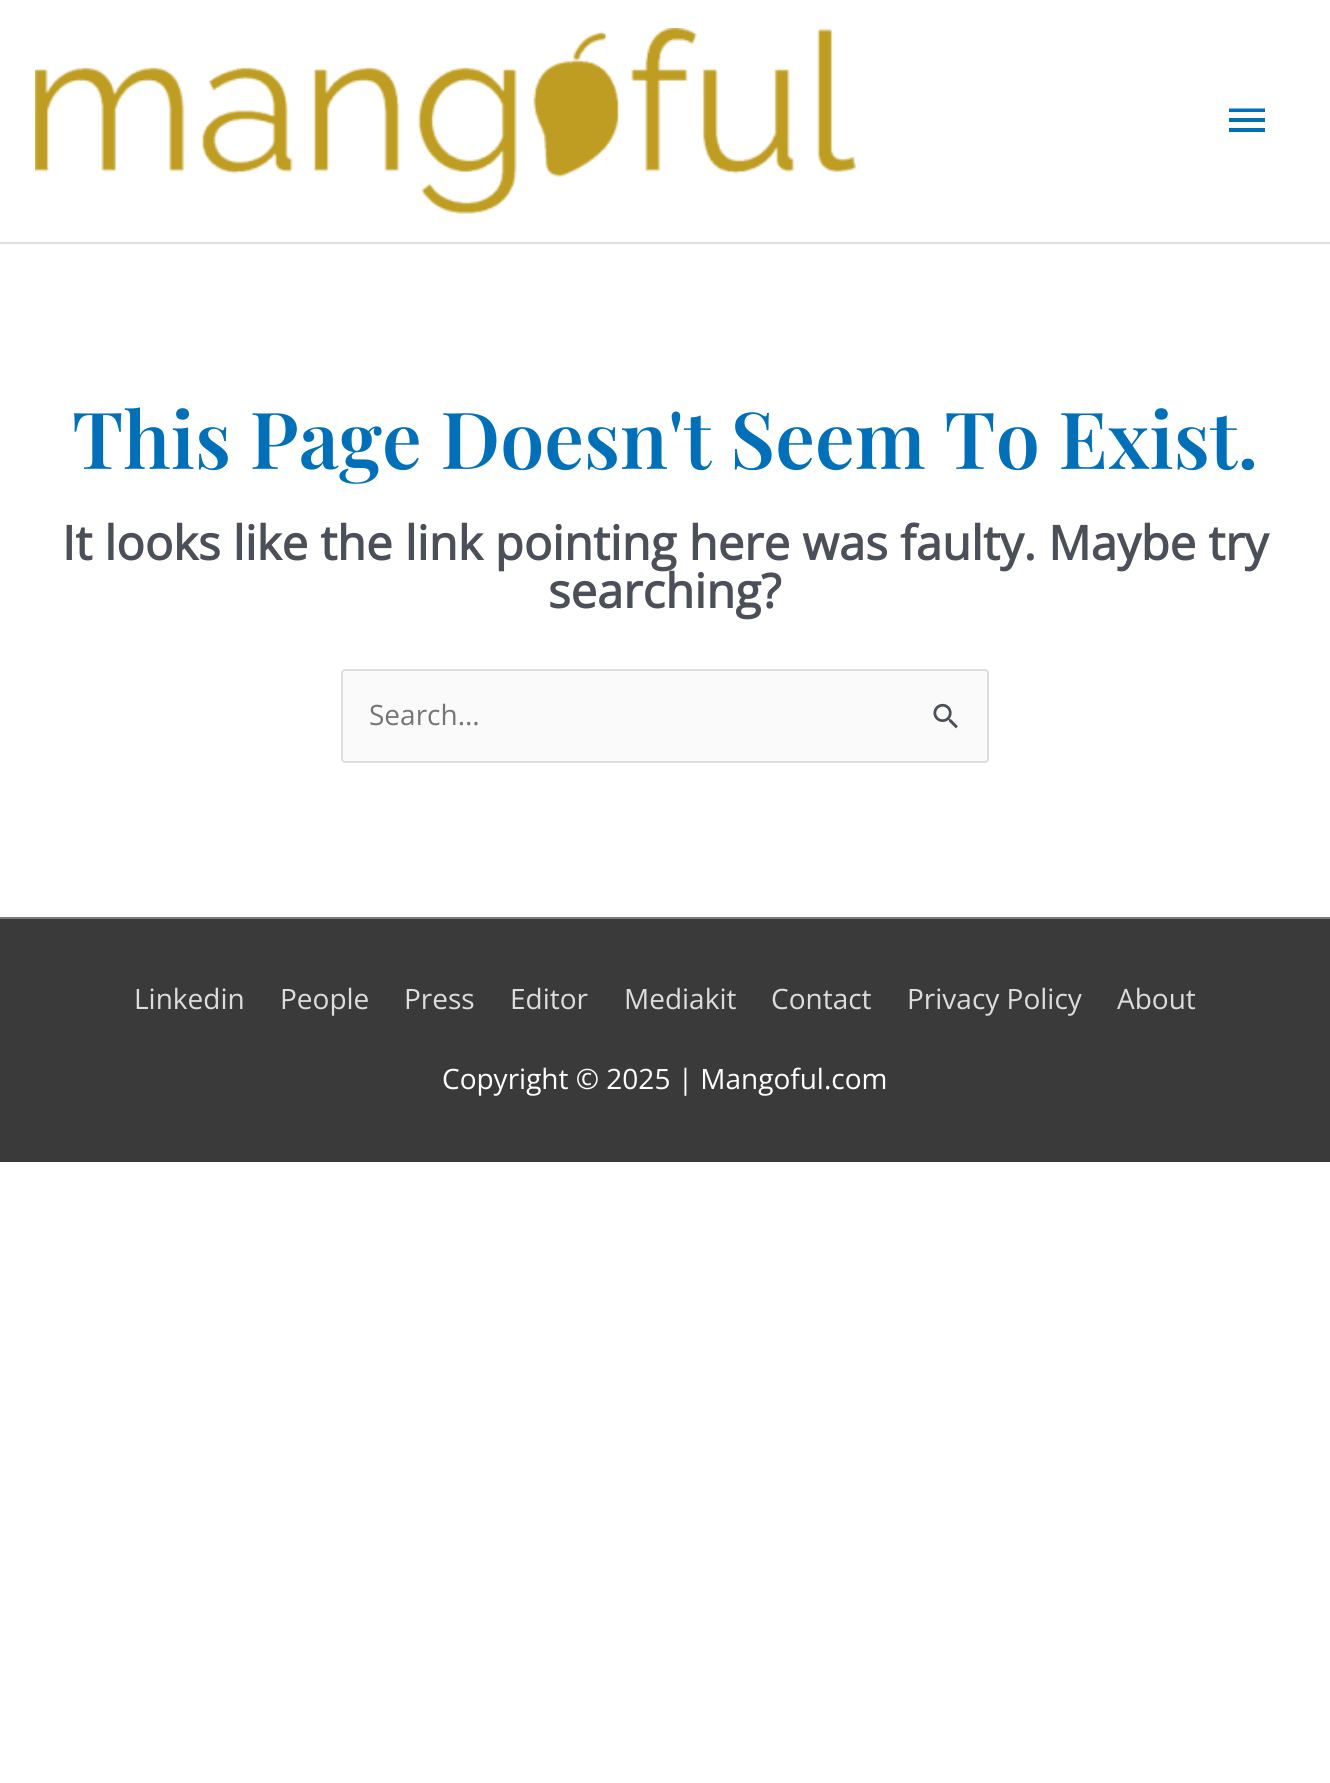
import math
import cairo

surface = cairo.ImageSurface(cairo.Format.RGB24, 1330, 1783)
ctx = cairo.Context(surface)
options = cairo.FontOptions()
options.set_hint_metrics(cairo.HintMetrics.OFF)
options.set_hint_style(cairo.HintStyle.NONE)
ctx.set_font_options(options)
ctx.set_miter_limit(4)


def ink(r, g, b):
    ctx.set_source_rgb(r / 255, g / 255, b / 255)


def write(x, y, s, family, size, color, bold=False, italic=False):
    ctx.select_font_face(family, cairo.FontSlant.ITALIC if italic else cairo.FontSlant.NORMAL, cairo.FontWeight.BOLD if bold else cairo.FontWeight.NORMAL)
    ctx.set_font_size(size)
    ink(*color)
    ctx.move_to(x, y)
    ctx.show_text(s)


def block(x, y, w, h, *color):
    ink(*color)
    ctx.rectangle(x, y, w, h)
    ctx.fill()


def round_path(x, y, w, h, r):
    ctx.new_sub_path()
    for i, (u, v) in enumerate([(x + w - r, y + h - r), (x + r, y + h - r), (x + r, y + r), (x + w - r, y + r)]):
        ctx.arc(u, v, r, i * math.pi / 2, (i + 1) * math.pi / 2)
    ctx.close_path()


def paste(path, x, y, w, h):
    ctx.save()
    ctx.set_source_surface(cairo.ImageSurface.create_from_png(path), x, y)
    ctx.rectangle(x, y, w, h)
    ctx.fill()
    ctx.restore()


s1 = dict(family="Playfair Display SemiBold", size=78.75, color=(1, 112, 185))
s2 = dict(family="Open Sans", size=47.25, color=(75, 79, 88), bold=True)
s3 = dict(family="Open Sans", size=28, color=(117, 117, 117))
s4 = dict(family="Open Sans", size=28, color=(221, 221, 221))
s5 = dict(family="Open Sans", size=28, color=(255, 255, 255))

ink(255, 255, 255)
ctx.paint()
block(0, 242, 1330, 2, 221, 221, 221)
paste("pic1.png", 35, 28, 821, 186)
ink(1, 112, 185)
ctx.new_path()
ctx.move_to(1229, 108.5)
ctx.line_to(1265, 108.5)
ctx.line_to(1265, 112)
ctx.line_to(1229, 112)
ctx.close_path()
ctx.move_to(1229, 122)
ctx.line_to(1229, 118)
ctx.line_to(1265, 118)
ctx.line_to(1265, 122)
ctx.close_path()
ctx.move_to(1229, 132)
ctx.line_to(1229, 128)
ctx.line_to(1265, 128)
ctx.line_to(1265, 132)
ctx.close_path()
ctx.fill()
write(72, 469, "This Page Doesn't Seem To Exist.", **s1)
write(62, 560, "It looks like the link pointing here was faulty. Maybe try", **s2)
write(548, 608, "searching?", **s2)
ink(250, 250, 250)
round_path(342, 670, 646, 92, 3)
ctx.fill_preserve()
ink(221, 221, 221)
ctx.stroke()
write(369, 725, "Search...", **s3)
paste("pic2.png", 933, 703, 25, 26)
block(0, 917, 1330, 2, 122, 122, 122)
block(0, 919, 1330, 243, 58, 58, 58)
write(134, 1009, "Linkedin", **s4)
write(280, 1009, "People", **s4)
write(404, 1009, "Press", **s4)
write(510, 1009, "Editor", **s4)
write(624, 1009, "Mediakit", **s4)
write(771, 1009, "Contact", **s4)
write(907, 1009, "Privacy Policy", **s4)
write(1117, 1009, "About", **s4)
write(442, 1089, "Copyright © 2025 | Mangoful.com", **s5)
surface.write_to_png("screenshot.png")
